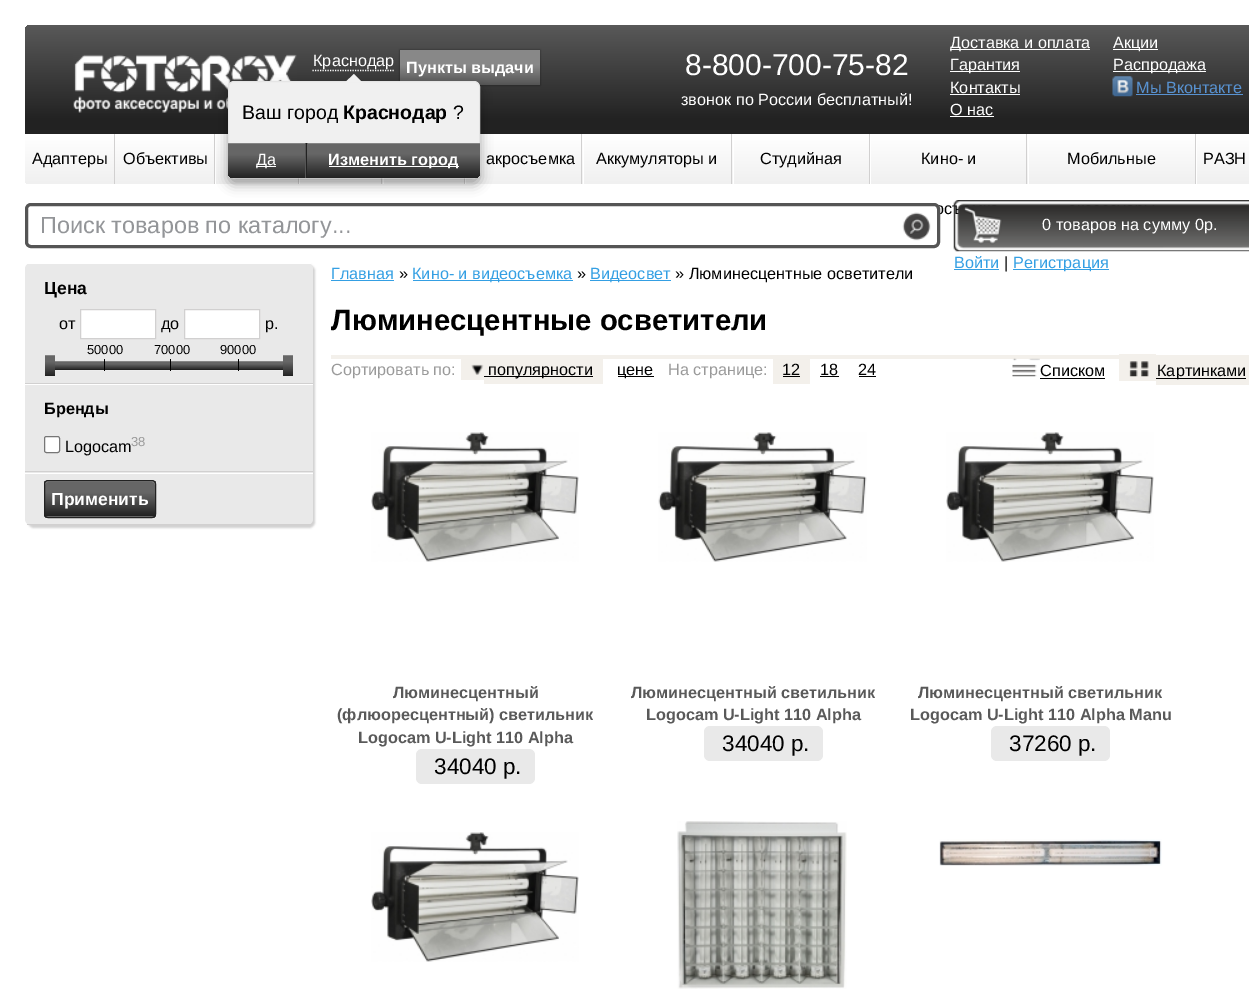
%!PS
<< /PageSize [1249 991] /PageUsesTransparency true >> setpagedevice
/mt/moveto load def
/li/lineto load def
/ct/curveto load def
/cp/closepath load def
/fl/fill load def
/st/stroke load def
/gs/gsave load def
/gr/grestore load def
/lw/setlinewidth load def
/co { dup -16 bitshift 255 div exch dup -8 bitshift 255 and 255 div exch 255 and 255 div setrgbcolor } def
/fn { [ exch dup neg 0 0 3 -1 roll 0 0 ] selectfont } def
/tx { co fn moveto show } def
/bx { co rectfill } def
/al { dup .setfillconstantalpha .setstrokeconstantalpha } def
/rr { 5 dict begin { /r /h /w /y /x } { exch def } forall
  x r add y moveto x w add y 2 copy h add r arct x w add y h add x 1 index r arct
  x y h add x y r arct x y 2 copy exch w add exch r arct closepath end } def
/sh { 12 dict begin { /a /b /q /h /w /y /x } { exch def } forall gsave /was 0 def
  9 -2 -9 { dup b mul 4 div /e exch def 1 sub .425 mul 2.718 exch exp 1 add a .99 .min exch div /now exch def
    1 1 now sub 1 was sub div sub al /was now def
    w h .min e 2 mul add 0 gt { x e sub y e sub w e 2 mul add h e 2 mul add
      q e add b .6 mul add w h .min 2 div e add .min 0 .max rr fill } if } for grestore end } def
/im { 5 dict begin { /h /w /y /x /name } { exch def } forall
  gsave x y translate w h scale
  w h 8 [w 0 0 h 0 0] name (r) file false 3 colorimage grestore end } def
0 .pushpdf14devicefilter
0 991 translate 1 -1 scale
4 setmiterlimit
0 0 1249 991 16#FFFFFF bx
gs 25 25 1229 159 5 rr clip newpath
<< /ShadingType 2 /ColorSpace /DeviceRGB /Coords [650 25 650 184] /Extend [true true] /Function << /FunctionType 3 /Domain [0 1] /Functions [<< /FunctionType 2 /Domain [0 1] /C0 [.349 .349 .349] /C1 [.133 .133 .133] /N 1 >> << /FunctionType 2 /Domain [0 1] /C0 [.133 .133 .133] /C1 [.133 .133 .133] /N 1 >>] /Bounds [.6] /Encode [0 1 0 1] >> >> shfill gr
(media/1.raw) 73 54 224 59 im
1.2 lw
[1.25 1.25] 0 setdash
312.5 70.5 mt 394 70.5 li st
16#000000 co
400 50 140 35 0 1 .5 sh
gs 400 50 mt 540 50 li 540 85 li 400 85 li cp clip newpath
<< /ShadingType 2 /ColorSpace /DeviceRGB /Coords [470 50 470 85] /Extend [true true] /Function << /FunctionType 3 /Domain [0 1] /Functions [<< /FunctionType 2 /Domain [0 1] /C0 [.533 .533 .533] /C1 [.533 .533 .533] /N 1 >> << /FunctionType 2 /Domain [0 1] /C0 [.533 .533 .533] /C1 [.333 .333 .333] /N 1 >>] /Bounds [.43] /Encode [0 1 0 1] >> >> shfill gr
gs 115 134 mt 214 134 li 214 184 li 115 184 li cp clip newpath
<< /ShadingType 2 /ColorSpace /DeviceRGB /Coords [164 134 164 184] /Extend [true true] /Function << /FunctionType 2 /Domain [0 1] /C0 [1 1 1] /C1 [.941 .941 .941] /N 1 >> >> shfill gr
215 134 1 50 16#FFFFFF bx
gs 216 134 mt 298 134 li 298 184 li 216 184 li cp clip newpath
<< /ShadingType 2 /ColorSpace /DeviceRGB /Coords [256 134 256 184] /Extend [true true] /Function << /FunctionType 2 /Domain [0 1] /C0 [1 1 1] /C1 [.941 .941 .941] /N 1 >> >> shfill gr
299 178 1 6 16#FFFFFF bx
214 134 1 50 16#D1D0D0 bx
gs 466 134 mt 581 134 li 581 184 li 466 184 li cp clip newpath
<< /ShadingType 2 /ColorSpace /DeviceRGB /Coords [523 134 523 184] /Extend [true true] /Function << /FunctionType 2 /Domain [0 1] /C0 [1 1 1] /C1 [.941 .941 .941] /N 1 >> >> shfill gr
464 178 1 6 16#D1D0D0 bx
gs 300 178 mt 381 178 li 381 184 li 300 184 li cp clip newpath
<< /ShadingType 2 /ColorSpace /DeviceRGB /Coords [339 134 339 184] /Extend [true true] /Function << /FunctionType 2 /Domain [0 1] /C0 [1 1 1] /C1 [.941 .941 .941] /N 1 >> >> shfill gr
gs 382 178 mt 464 178 li 464 184 li 382 184 li cp clip newpath
<< /ShadingType 2 /ColorSpace /DeviceRGB /Coords [423 134 423 184] /Extend [true true] /Function << /FunctionType 2 /Domain [0 1] /C0 [1 1 1] /C1 [.941 .941 .941] /N 1 >> >> shfill gr
383 178 1 6 16#FFFFFF bx
298 178 1 6 16#D1D0D0 bx
465 178 1 6 16#FFFFFF bx
381 178 1 6 16#D1D0D0 bx
16#000000 co
228 88 252 96 6 6 .35 sh
16#F0F0F0 co
228.5 81.5 251 96 5.5 rr gs fl gr
16#E5E5E5 co
1 lw
[] 0 setdash
st
16#F0F0F0 co
362.5 82.5 mt 345 82.5 li 354 74 li cp fl
0.14 al
16#FFFFFF co
228 174 mt 228 177 231 179 234 179 ct 306 179 li 306 178 li 234 178 li 231 178 229 176 228 174 ct cp fl
1 al
gs 228 143 mt 306 143 li 306 178 li 234 178 li 230.5 178 228 175.5 228 172 ct cp clip newpath
<< /ShadingType 2 /ColorSpace /DeviceRGB /Coords [266 143 266 178] /Extend [true true] /Function << /FunctionType 3 /Domain [0 1] /Functions [<< /FunctionType 2 /Domain [0 1] /C0 [.4 .4 .4] /C1 [.4 .4 .4] /N 1 >> << /FunctionType 2 /Domain [0 1] /C0 [.4 .4 .4] /C1 [.2 .2 .2] /N 1 >> << /FunctionType 2 /Domain [0 1] /C0 [.2 .2 .2] /C1 [.133 .133 .133] /N 1 >>] /Bounds [.33 .83] /Encode [0 1 0 1 0 1] >> >> shfill gr
228 143 77 1 16#868686 bx
305 143 1 35 16#555555 bx
256 166 20 1 16#FFFFFF bx
0.14 al
306 144 mt 306 179 li 474 179 li 477 179 480 176 480 173 ct 480 171 li 480 175 477 178 474 178 ct 306 178 li cp fl
1 al
gs 306 143 mt 480 143 li 480 172 li 480 175.5 477.5 178 474 178 ct 306 178 li cp clip newpath
<< /ShadingType 2 /ColorSpace /DeviceRGB /Coords [394 142 394 178] /Extend [true true] /Function << /FunctionType 3 /Domain [0 1] /Functions [<< /FunctionType 2 /Domain [0 1] /C0 [.4 .4 .4] /C1 [.4 .4 .4] /N 1 >> << /FunctionType 2 /Domain [0 1] /C0 [.4 .4 .4] /C1 [.2 .2 .2] /N 1 >> << /FunctionType 2 /Domain [0 1] /C0 [.2 .2 .2] /C1 [.133 .133 .133] /N 1 >>] /Bounds [.33 .83] /Encode [0 1 0 1 0 1] >> >> shfill gr
308 143 172 1 16#868686 bx
306 143 1 35 16#222222 bx
329 166 130 1 16#FFFFFF bx
950 49 140 1 16#FFFFFF bx
950 71 70 1 16#FFFFFF bx
950 94 70 1 16#FFFFFF bx
950 116 44 1 16#FFFFFF bx
1113 49 45 1 16#FFFFFF bx
1113 71 93 1 16#FFFFFF bx
(media/2.raw) 1112 76 21 21 im
1136 94 107 1 16#5892D1 bx
gs 25 134 mt 114 134 li 114 184 li 29 184 li 27 184 25 182 25 180 ct cp clip newpath
<< /ShadingType 2 /ColorSpace /DeviceRGB /Coords [69 134 69 184] /Extend [true true] /Function << /FunctionType 2 /Domain [0 1] /C0 [1 1 1] /C1 [.941 .941 .941] /N 1 >> >> shfill gr
114 134 1 50 16#D1D0D0 bx
gs 582 134 mt 731 134 li 731 184 li 582 184 li cp clip newpath
<< /ShadingType 2 /ColorSpace /DeviceRGB /Coords [656 134 656 184] /Extend [true true] /Function << /FunctionType 2 /Domain [0 1] /C0 [1 1 1] /C1 [.941 .941 .941] /N 1 >> >> shfill gr
583 134 1 50 16#FFFFFF bx
gs 732 134 mt 869 134 li 869 184 li 732 184 li cp clip newpath
<< /ShadingType 2 /ColorSpace /DeviceRGB /Coords [800 134 800 184] /Extend [true true] /Function << /FunctionType 2 /Domain [0 1] /C0 [1 1 1] /C1 [.941 .941 .941] /N 1 >> >> shfill gr
733 134 1 50 16#FFFFFF bx
581 134 1 50 16#D1D0D0 bx
870 134 1 50 16#FFFFFF bx
731 134 1 50 16#D1D0D0 bx
gs 871 134 mt 1026 134 li 1026 184 li 871 184 li cp clip newpath
<< /ShadingType 2 /ColorSpace /DeviceRGB /Coords [948 134 948 184] /Extend [true true] /Function << /FunctionType 2 /Domain [0 1] /C0 [1 1 1] /C1 [.941 .941 .941] /N 1 >> >> shfill gr
gs 1027 134 mt 1195 134 li 1195 184 li 1027 184 li cp clip newpath
<< /ShadingType 2 /ColorSpace /DeviceRGB /Coords [1111 134 1111 184] /Extend [true true] /Function << /FunctionType 2 /Domain [0 1] /C0 [1 1 1] /C1 [.941 .941 .941] /N 1 >> >> shfill gr
1028 134 1 50 16#FFFFFF bx
869 134 1 50 16#D1D0D0 bx
1196 134 1 50 16#FFFFFF bx
1026 134 1 50 16#D1D0D0 bx
gs 1197 134 mt 1249 134 li 1249 184 li 1197 184 li cp clip newpath
<< /ShadingType 2 /ColorSpace /DeviceRGB /Coords [1235 134 1235 184] /Extend [true true] /Function << /FunctionType 2 /Domain [0 1] /C0 [1 1 1] /C1 [.941 .941 .941] /N 1 >> >> shfill gr
1195 134 1 50 16#D1D0D0 bx
954 269 45 1 16#349FE3 bx
1013 269 96 1 16#349FE3 bx
16#D1D0D0 co
28 265 287 263 6 1 1 sh
16#E9E9E9 co
25 263 288 262 6 rr fl
gs
25 263 288 262 6 rr clip newpath
25 263 288 1 16#FFFFFF bx
gr
25 383 288 1 16#D1D0D0 bx
16#FFFFFF co
80.5 309.5 mt 155.5 309.5 li 155.5 338.5 li 80.5 338.5 li cp gs fl gr
16#D1D0D0 co
st
16#FFFFFF co
184.5 309.5 mt 259.5 309.5 li 259.5 338.5 li 184.5 338.5 li cp gs fl gr
16#D1D0D0 co
st
16#ECECEC co
50 370 mt 50 371 li 288 371 li 288 363 li 288 370 li cp fl
gs 55 362 mt 283 362 li 283 370 li 55 370 li cp clip newpath
<< /ShadingType 2 /ColorSpace /DeviceRGB /Coords [169 361 169 370] /Extend [true true] /Function << /FunctionType 3 /Domain [0 1] /Functions [<< /FunctionType 2 /Domain [0 1] /C0 [.4 .4 .4] /C1 [.4 .4 .4] /N 1 >> << /FunctionType 2 /Domain [0 1] /C0 [.4 .4 .4] /C1 [.2 .2 .2] /N 1 >> << /FunctionType 2 /Domain [0 1] /C0 [.2 .2 .2] /C1 [.133 .133 .133] /N 1 >>] /Bounds [.33 .83] /Encode [0 1 0 1 0 1] >> >> shfill gr
50 361 238 1 16#868686 bx
104 359 1 12 16#000000 bx
170 359 1 12 16#000000 bx
238 359 1 12 16#000000 bx
gs 45 356 mt 55 356 li 55 376 li 45 376 li cp clip newpath
<< /ShadingType 2 /ColorSpace /DeviceRGB /Coords [50 355 50 376] /Extend [true true] /Function << /FunctionType 3 /Domain [0 1] /Functions [<< /FunctionType 2 /Domain [0 1] /C0 [.4 .4 .4] /C1 [.4 .4 .4] /N 1 >> << /FunctionType 2 /Domain [0 1] /C0 [.4 .4 .4] /C1 [.2 .2 .2] /N 1 >> << /FunctionType 2 /Domain [0 1] /C0 [.2 .2 .2] /C1 [.133 .133 .133] /N 1 >>] /Bounds [.33 .83] /Encode [0 1 0 1 0 1] >> >> shfill gr
45 355 10 1 16#868686 bx
gs 283 356 mt 293 356 li 293 376 li 283 376 li cp clip newpath
<< /ShadingType 2 /ColorSpace /DeviceRGB /Coords [288 355 288 376] /Extend [true true] /Function << /FunctionType 3 /Domain [0 1] /Functions [<< /FunctionType 2 /Domain [0 1] /C0 [.4 .4 .4] /C1 [.4 .4 .4] /N 1 >> << /FunctionType 2 /Domain [0 1] /C0 [.4 .4 .4] /C1 [.2 .2 .2] /N 1 >> << /FunctionType 2 /Domain [0 1] /C0 [.2 .2 .2] /C1 [.133 .133 .133] /N 1 >>] /Bounds [.33 .83] /Encode [0 1 0 1 0 1] >> >> shfill gr
283 355 10 1 16#868686 bx
25 384 288 1 16#FFFFFF bx
25 471 288 1 16#D1D0D0 bx
16#FFFFFF co
44.5 436.5 15 16 2 rr gs fl gr
16#767676 co
st
25 473 288 1 16#FFFFFF bx
gs
25 263 288 262 6 rr clip newpath
25 524 288 1 16#D1D0D0 bx
gr
16#ECECEC co
44 515 mt 44 517 46 519 48 519 ct 152 519 li 154 519 156 517 156 515 ct 155 517 154 518 152 518 ct 48 518 li 46 518 45 517 44 515 ct cp fl
gs
44 480 112 38 4 rr clip newpath
gs 44 481 mt 156 481 li 156 516 li 44 516 li cp clip newpath
<< /ShadingType 2 /ColorSpace /DeviceRGB /Coords [100 481 100 516] /Extend [true true] /Function << /FunctionType 3 /Domain [0 1] /Functions [<< /FunctionType 2 /Domain [0 1] /C0 [.4 .4 .4] /C1 [.4 .4 .4] /N 1 >> << /FunctionType 2 /Domain [0 1] /C0 [.4 .4 .4] /C1 [.2 .2 .2] /N 1 >> << /FunctionType 2 /Domain [0 1] /C0 [.2 .2 .2] /C1 [.133 .133 .133] /N 1 >>] /Bounds [.33 .83] /Encode [0 1 0 1 0 1] >> >> shfill gr
gs 44 516 mt 156 516 li 156 518 li 44 518 li cp clip newpath
<< /ShadingType 2 /ColorSpace /DeviceRGB /Coords [100 516 100 551] /Extend [true true] /Function << /FunctionType 3 /Domain [0 1] /Functions [<< /FunctionType 2 /Domain [0 1] /C0 [.4 .4 .4] /C1 [.4 .4 .4] /N 1 >> << /FunctionType 2 /Domain [0 1] /C0 [.4 .4 .4] /C1 [.2 .2 .2] /N 1 >> << /FunctionType 2 /Domain [0 1] /C0 [.2 .2 .2] /C1 [.133 .133 .133] /N 1 >>] /Bounds [.33 .83] /Encode [0 1 0 1 0 1] >> >> shfill gr
gr
16#868686 co
48 482 mt 152 482 li 154 482 155 484 155 485 ct 155 484 li 155 482 154 481 152 481 ct 48 481 li 46 481 45 482 45 484 ct 45 485 li 45 484 46 482 48 482 ct cp fl
16#222222 co
44.5 480.5 111 37 3.5 rr st
331 280 63 1 16#349FE3 bx
413 280 160 1 16#349FE3 bx
590 280 81 1 16#349FE3 bx
331 355 918 4 16#F3F0EB bx
461 359 23 21 16#F3F0EB bx
484 359 119 25 16#F3F0EB bx
(media/5.raw) 471 364 13 11 im
484 376 109 1 16#000000 bx
618 376 36 1 16#000000 bx
773 359 37 25 16#F3F0EB bx
783 376 17 1 16#000000 bx
820 376 19 1 16#000000 bx
859 376 17 1 16#000000 bx
(media/6.raw) 1012 358 28 19 im
1040 378 65 1 16#000000 bx
1119 354 37 27 16#F3F0EB bx
1156 359 93 26 16#F3F0EB bx
(media/7.raw) 1129 361 20 16 im
1156 378 90 1 16#000000 bx
(media/8.raw) 371 432 208 130 im
16#E9E9E9 co
416 749 119 35 6 rr fl
(media/9.raw) 658 432 209 130 im
704 726 119 35 6 rr fl
(media/8.raw) 946 432 208 130 im
991 726 119 35 6 rr fl
(media/8.raw) 371 832 208 130 im
(media/10.raw) 677 821 170 168 im
(media/11.raw) 939 839 223 27 im
(Краснодар) 313 66 /LiberationSans-Regular 16.25 16#FFFFFF tx
(Ваш город) 242 119 /LiberationSans-Regular 19.5 16#000000 tx
(Краснодар) 343 119 /LiberationSans-Bold 19.5 16#000000 tx
(?) 453 119 /LiberationSans-Regular 19.5 16#000000 tx
(Да) 256 165 /LiberationSans-Regular 16.25 16#FFFFFF tx
(Изменить город) 328 165 /LiberationSans-Bold 16.25 16#FFFFFF tx
(Пункты выдачи) 406 73 /LiberationSans-Bold 16.25 16#FFFFFF tx
(8-800-700-75-82) 685 75 /LiberationSans-Regular 30 16#FFFFFF tx
(звонок по России бесплатный!) 681 105 /LiberationSans-Regular 16.25 16#FFFFFF tx
(Доставка и оплата) 950 48 /LiberationSans-Regular 16.25 16#FFFFFF tx
(Гарантия) 950 70 /LiberationSans-Regular 16.25 16#FFFFFF tx
(Контакты) 950 93 /LiberationSans-Regular 16.25 16#FFFFFF tx
(О нас) 950 115 /LiberationSans-Regular 16.25 16#FFFFFF tx
(Акции) 1113 48 /LiberationSans-Regular 16.25 16#FFFFFF tx
(Распродажа) 1113 70 /LiberationSans-Regular 16.25 16#FFFFFF tx
(Мы Вконтакте) 1136 93 /LiberationSans-Regular 16.25 16#5892D1 tx
(Адаптеры) 32 164 /LiberationSans-Regular 16.25 16#000000 tx
(Объективы) 123 164 /LiberationSans-Regular 16.25 16#000000 tx
(акросъемка) 486 164 /LiberationSans-Regular 16.25 16#000000 tx
(Аккумуляторы и) 596 164 /LiberationSans-Regular 16.25 16#000000 tx
(Студийная) 760 164 /LiberationSans-Regular 16.25 16#000000 tx
(Кино- и) 921 164 /LiberationSans-Regular 16.25 16#000000 tx
(осъ) 935 214 /LiberationSans-Regular 16.25 16#000000 tx
(Мобильные) 1067 164 /LiberationSans-Regular 16.25 16#000000 tx
(РАЗН) 1203 164 /LiberationSans-Regular 16.25 16#000000 tx
16#FFFFFF co
26.5 204.5 912 42 4.5 rr gs fl gr
16#555555 co
3 lw
st
(Поиск товаров по каталогу...) 40 233 /LiberationSans-Regular 23.4 16#939598 tx
(media/3.raw) 902 212 29 29 im
(media/4.raw) 953 200 296 52 im
(0 товаров на сумму 0р.) 1042 230 /LiberationSans-Regular 16.25 16#FFFFFF tx
(Войти) 954 268 /LiberationSans-Regular 16.25 16#349FE3 tx
(|) 1004 268 /LiberationSans-Regular 16.25 16#000000 tx
(Регистрация) 1013 268 /LiberationSans-Regular 16.25 16#349FE3 tx
(Цена) 44 294 /LiberationSans-Bold 17.5 16#000000 tx
(от) 59 329 /LiberationSans-Regular 16.25 16#000000 tx
(до) 161 329 /LiberationSans-Regular 16.25 16#000000 tx
(р.) 265 329 /LiberationSans-Regular 16.25 16#000000 tx
(50000) 87 354 /LiberationSans-Regular 13 16#000000 tx
(70000) 154 354 /LiberationSans-Regular 13 16#000000 tx
(90000) 220 354 /LiberationSans-Regular 13 16#000000 tx
(Бренды) 44 414 /LiberationSans-Bold 16.25 16#000000 tx
(Logocam) 65 452 /LiberationSans-Regular 16.25 16#000000 tx
(38) 131 446 /LiberationSans-Regular 13 16#9A9A9A tx
(Применить) 51 505 /LiberationSans-Bold 17.5 16#FFFFFF tx
(Главная) 331 279 /LiberationSans-Regular 16.25 16#349FE3 tx
(») 399 279 /LiberationSans-Regular 16.25 16#000000 tx
(Кино- и видеосъемка) 412 279 /LiberationSans-Regular 16.25 16#349FE3 tx
(») 577 279 /LiberationSans-Regular 16.25 16#000000 tx
(Видеосвет) 590 279 /LiberationSans-Regular 16.25 16#349FE3 tx
(» Люминесцентные осветители) 675 279 /LiberationSans-Regular 16.25 16#000000 tx
(Люминесцентные осветители) 331 330 /LiberationSans-Bold 29.25 16#000000 tx
(Сортировать по:) 331 375 /LiberationSans-Regular 16.25 16#9A9A9A tx
(популярности) 488 375 /LiberationSans-Regular 16.25 16#000000 tx
(цене) 617 375 /LiberationSans-Regular 16.25 16#000000 tx
(На странице:) 668 375 /LiberationSans-Regular 16.25 16#9A9A9A tx
(12) 782 375 /LiberationSans-Regular 16.25 16#000000 tx
(18) 820 375 /LiberationSans-Regular 16.25 16#000000 tx
(24) 858 375 /LiberationSans-Regular 16.25 16#000000 tx
(Списком) 1040 376 /LiberationSans-Regular 16.25 16#000000 tx
(Картинками) 1157 376 /LiberationSans-Regular 16.25 16#000000 tx
(Люминесцентный) 393 698 /LiberationSans-Bold 16.25 16#595959 tx
(\(флюоресцентный\) светильник) 337 720 /LiberationSans-Bold 16.25 16#595959 tx
(Logocam U-Light 110 Alpha) 358 743 /LiberationSans-Bold 16.25 16#595959 tx
(34040 р.) 434 774 /LiberationSans-Regular 22.5 16#000000 tx
(Люминесцентный светильник) 631 698 /LiberationSans-Bold 16.25 16#595959 tx
(Logocam U-Light 110 Alpha) 646 720 /LiberationSans-Bold 16.25 16#595959 tx
(34040 р.) 722 751 /LiberationSans-Regular 22.5 16#000000 tx
(Люминесцентный светильник) 918 698 /LiberationSans-Bold 16.25 16#595959 tx
(Logocam U-Light 110 Alpha Manu) 910 720 /LiberationSans-Bold 16.25 16#595959 tx
(37260 р.) 1009 751 /LiberationSans-Regular 22.5 16#000000 tx
.poppdf14devicefilter showpage
